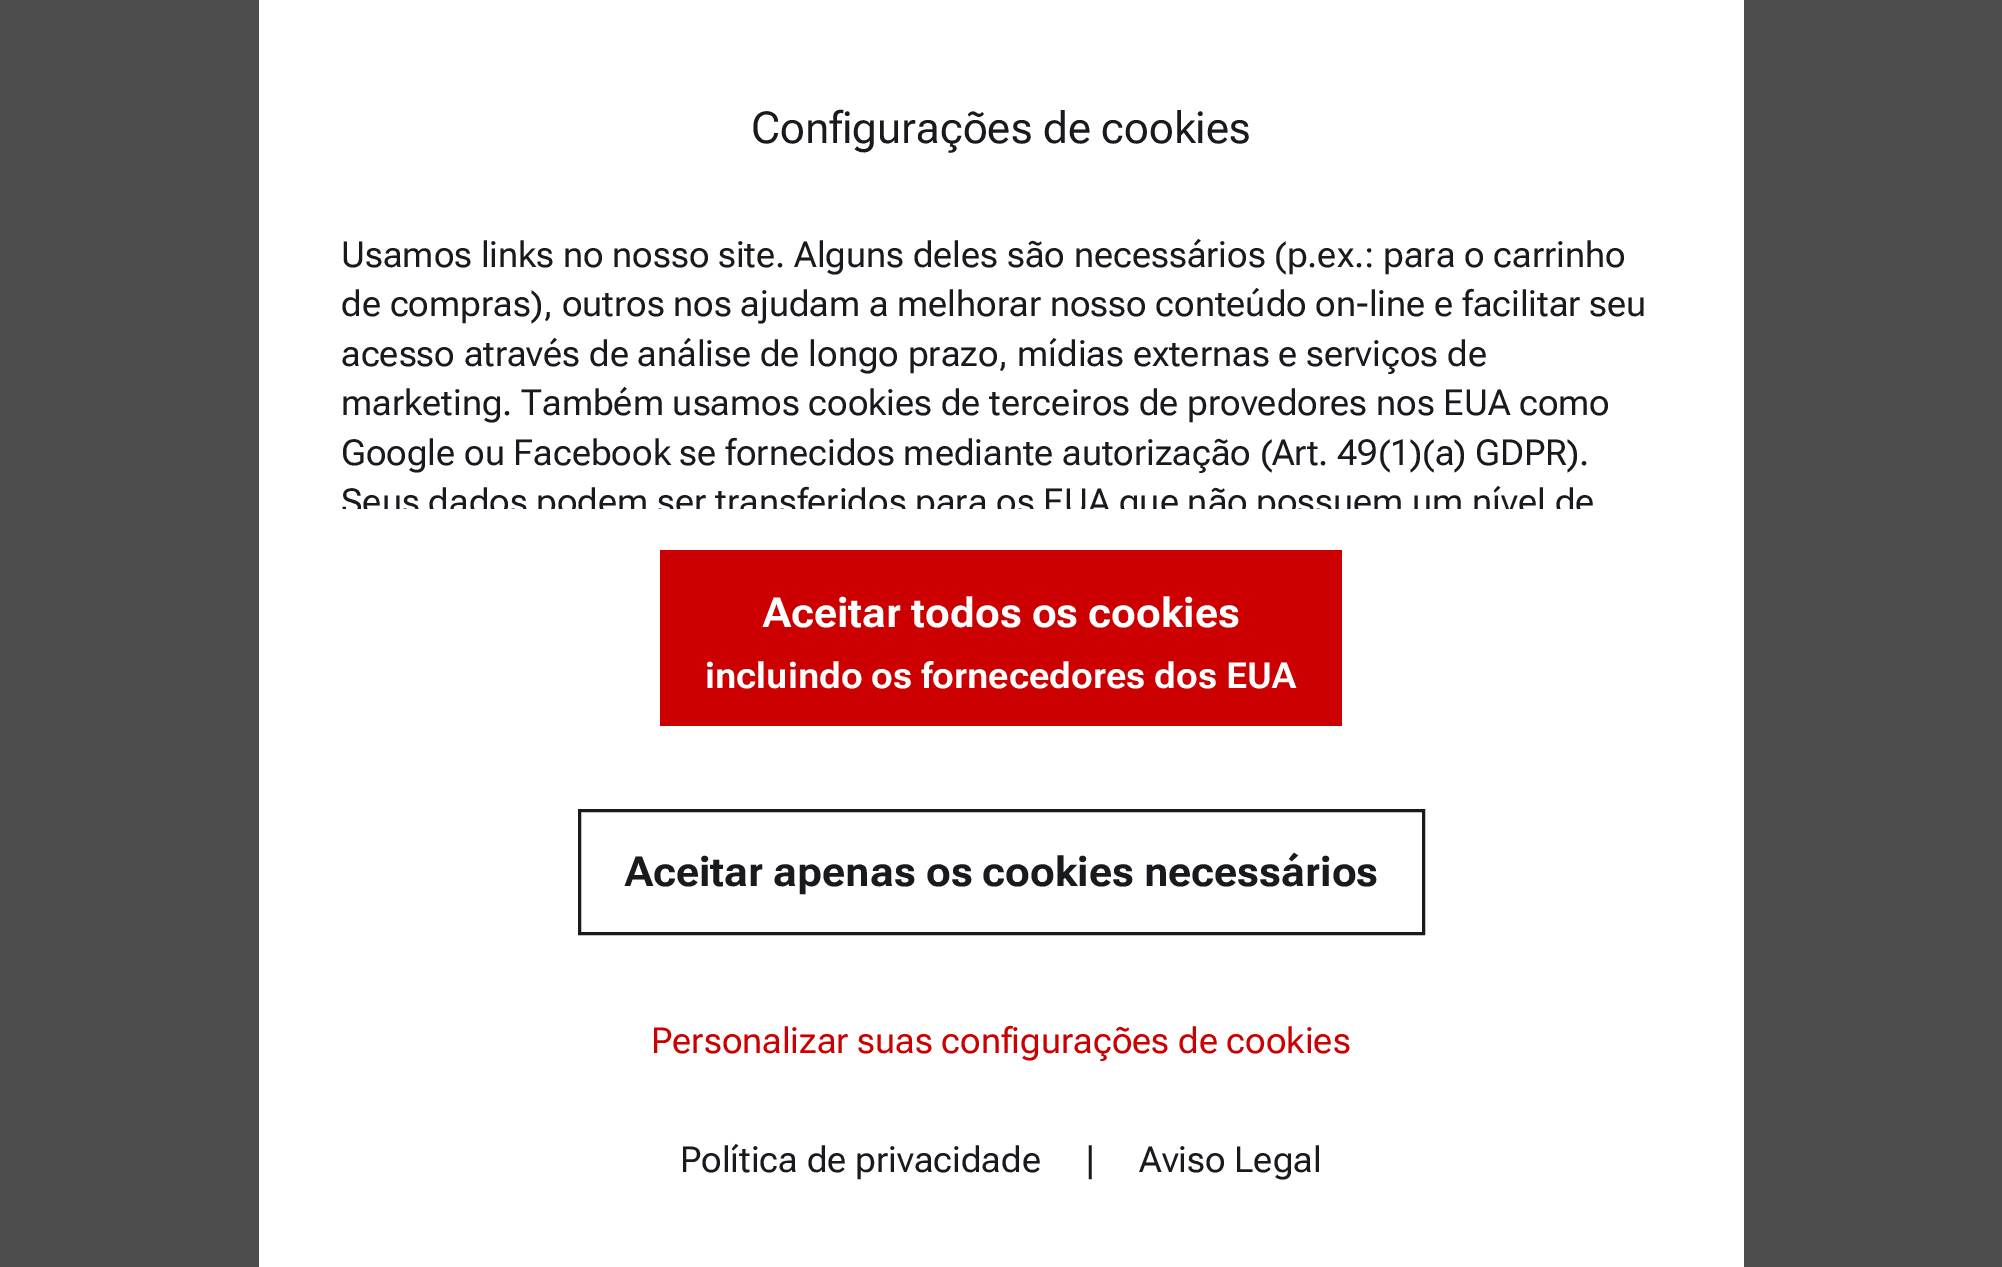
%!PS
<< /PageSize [2002 1267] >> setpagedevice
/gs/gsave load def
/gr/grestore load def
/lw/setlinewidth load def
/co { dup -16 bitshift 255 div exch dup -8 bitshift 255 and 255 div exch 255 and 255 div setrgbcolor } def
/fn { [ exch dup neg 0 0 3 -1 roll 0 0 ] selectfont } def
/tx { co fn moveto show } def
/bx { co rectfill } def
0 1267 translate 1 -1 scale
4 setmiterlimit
0 0 2002 1267 16#4D4D4D bx
259 0 1485 1267 16#FFFFFF bx
660 550 682 176 16#CC0000 bx
16#181A1E co
3 lw
579.5 810.5 844 123 rectstroke
(Configurações de cookies) 751 143 /RobotoFlex-Regular 44 16#181A1E tx
(Usamos links no nosso site. Alguns deles são necessários \(p.ex.: para o carrinho) 341 267 /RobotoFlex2-Regular 35.75 16#181A1E tx
(de compras\), outros nos ajudam a melhorar nosso conteúdo on-line e facilitar seu) 341 316 /RobotoFlex2-Regular 35.75 16#181A1E tx
(acesso através de análise de longo prazo, mídias externas e serviços de) 341 366 /RobotoFlex2-Regular 35.75 16#181A1E tx
(marketing. Também usamos cookies de terceiros de provedores nos EUA como) 341 415 /RobotoFlex2-Regular 35.75 16#181A1E tx
(Google ou Facebook se fornecidos mediante autorização \(Art. 49\(1\)\(a\) GDPR\).) 341 465 /RobotoFlex2-Regular 35.75 16#181A1E tx
gs
341 231 1320 278 rectclip
(Seus dados podem ser transferidos para os EUA que não possuem um nível de) 341 514 /RobotoFlex2-Regular 35.75 16#181A1E tx
gr
(Aceitar todos os cookies) 763 627 /RobotoFlex-Bold 41.25 16#FFFFFF tx
(incluindo os fornecedores dos EUA) 705 688 /RobotoFlex2-Bold 35.75 16#FFFFFF tx
(Aceitar apenas os cookies necessários) 625 886 /RobotoFlex-Bold 41.25 16#181A1E tx
(Personalizar suas configurações de cookies) 651 1053 /RobotoFlex2-Regular 35.75 16#CC0000 tx
(Política de privacidade) 680 1172 /RobotoFlex2-Regular 35.75 16#181A1E tx
(|) 1085 1172 /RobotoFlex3-Regular 35.75 16#181A1E tx
(Aviso Legal) 1139 1172 /RobotoFlex2-Regular 35.75 16#181A1E tx
showpage
